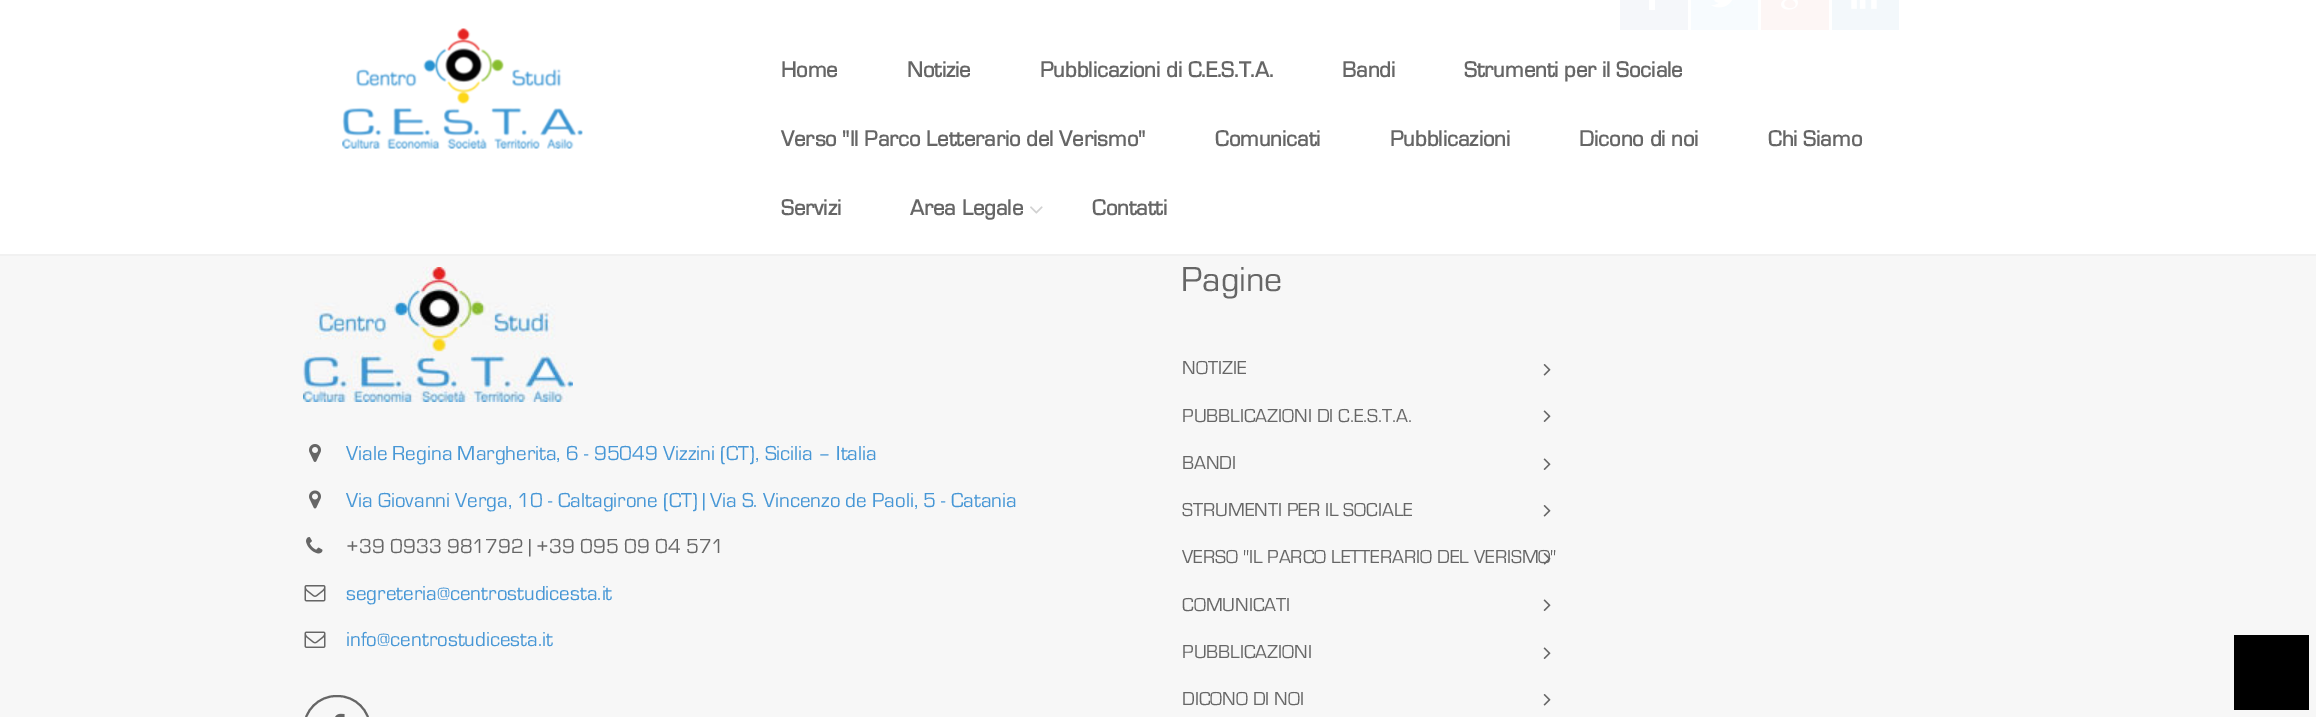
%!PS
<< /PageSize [2316 717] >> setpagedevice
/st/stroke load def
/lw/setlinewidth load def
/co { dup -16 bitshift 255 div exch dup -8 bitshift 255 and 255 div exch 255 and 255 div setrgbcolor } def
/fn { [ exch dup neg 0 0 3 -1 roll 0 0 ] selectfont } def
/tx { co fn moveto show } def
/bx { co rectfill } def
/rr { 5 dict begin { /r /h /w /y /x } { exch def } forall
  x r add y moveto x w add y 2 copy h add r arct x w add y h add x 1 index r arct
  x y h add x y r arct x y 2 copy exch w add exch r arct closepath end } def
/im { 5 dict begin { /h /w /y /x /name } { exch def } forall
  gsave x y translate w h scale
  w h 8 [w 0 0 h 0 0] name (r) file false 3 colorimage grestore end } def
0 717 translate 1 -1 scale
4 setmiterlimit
0 0 2316 717 16#FFFFFF bx
1620 0 68 30 16#F5F7FA bx
1649 0 6 10 16#FFFFFF bx
1691 0 67 30 16#F7FBFE bx
(media/1.raw) 1711 0 22 8 im
1761 0 68 30 16#FDF6F5 bx
(media/2.raw) 1781 0 17 10 im
1832 0 67 30 16#F3F8FB bx
(media/3.raw) 1851 0 26 9 im
0 254 2316 2 16#F1F1F1 bx
(media/4.raw) 342 28 241 121 im
(media/5.raw) 1030 206 13 8 im
0 256 2316 461 16#F7F7F7 bx
(media/6.raw) 303 267 270 135 im
(media/7.raw) 309 444 12 18 im
(media/8.raw) 309 490 12 19 im
(media/9.raw) 306 537 17 17 im
(media/10.raw) 304 585 22 17 im
(media/11.raw) 304 631 22 17 im
16#666666 co
2 lw
304 696 66 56 32.5 rr st
(media/12.raw) 335 713 10 4 im
(media/13.raw) 1543 364 8 12 im
(media/14.raw) 1543 410 8 12 im
(media/14.raw) 1543 458 8 12 im
(media/13.raw) 1543 505 8 12 im
(media/14.raw) 1543 599 8 12 im
(media/14.raw) 1543 647 8 12 im
(media/13.raw) 1543 694 8 12 im
2234 635 75 75 16#000000 bx
(Home) 781 77 /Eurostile-Bold 22.75 16#666666 tx
(Notizie) 907 77 /Eurostile-Bold 22.75 16#666666 tx
(Pubblicazioni di C.E.S.T.A.) 1040 77 /Eurostile-Bold 22.75 16#666666 tx
(Bandi) 1342 77 /Eurostile-Bold 22.75 16#666666 tx
(Strumenti per il Sociale) 1464 77 /Eurostile-Bold 22.75 16#666666 tx
(Verso "Il Parco Letterario del Verismo") 781 146 /Eurostile-Bold 22.75 16#666666 tx
(Comunicati) 1215 146 /Eurostile-Bold 22.75 16#666666 tx
(Pubblicazioni) 1390 146 /Eurostile-Bold 22.75 16#666666 tx
(Dicono di noi) 1579 146 /Eurostile-Bold 22.75 16#666666 tx
(Chi Siamo) 1768 146 /Eurostile-Bold 22.75 16#666666 tx
(Servizi) 781 215 /Eurostile-Bold 22.75 16#666666 tx
(Area Legale) 910 215 /Eurostile-Bold 22.75 16#666666 tx
(Contatti) 1092 215 /Eurostile-Bold 22.75 16#666666 tx
(Viale Regina Margherita, 6 - 95049 Vizzini \(CT\), Sicilia – Italia) 346 460 /Eurostile-Regular 21 16#4797D6 tx
(Via Giovanni Verga, 10 - Caltagirone \(CT\) | Via S. Vincenzo de Paoli, 5 - Catania) 346 507 /Eurostile-Regular 21 16#4797D6 tx
(+39 0933 981792 | +39 095 09 04 571) 346 553 /Eurostile-Regular 21 16#666666 tx
(segreteria@centrostudicesta.it) 346 600 /Eurostile-Regular 21 16#4797D6 tx
(info@centrostudicesta.it) 346 646 /Eurostile-Regular 21 16#4797D6 tx
(Pagine) 1181 291 /Eurostile-Regular 36 16#666666 tx
(NOTIZIE) 1182 374 /Eurostile-Regular 19.5 16#666666 tx
(PUBBLICAZIONI DI C.E.S.T.A.) 1182 422 /Eurostile-Regular 19.5 16#666666 tx
(BANDI) 1182 469 /Eurostile-Regular 19.5 16#666666 tx
(STRUMENTI PER IL SOCIALE) 1182 516 /Eurostile-Regular 19.5 16#666666 tx
(VERSO "IL PARCO LETTERARIO DEL VERISMO") 1182 563 /Eurostile-Regular 19.5 16#666666 tx
(media/15.raw) 1543 553 8 12 im
(COMUNICATI) 1182 611 /Eurostile-Regular 19.5 16#666666 tx
(PUBBLICAZIONI) 1182 658 /Eurostile-Regular 19.5 16#666666 tx
(DICONO DI NOI) 1182 705 /Eurostile-Regular 19.5 16#666666 tx
showpage
